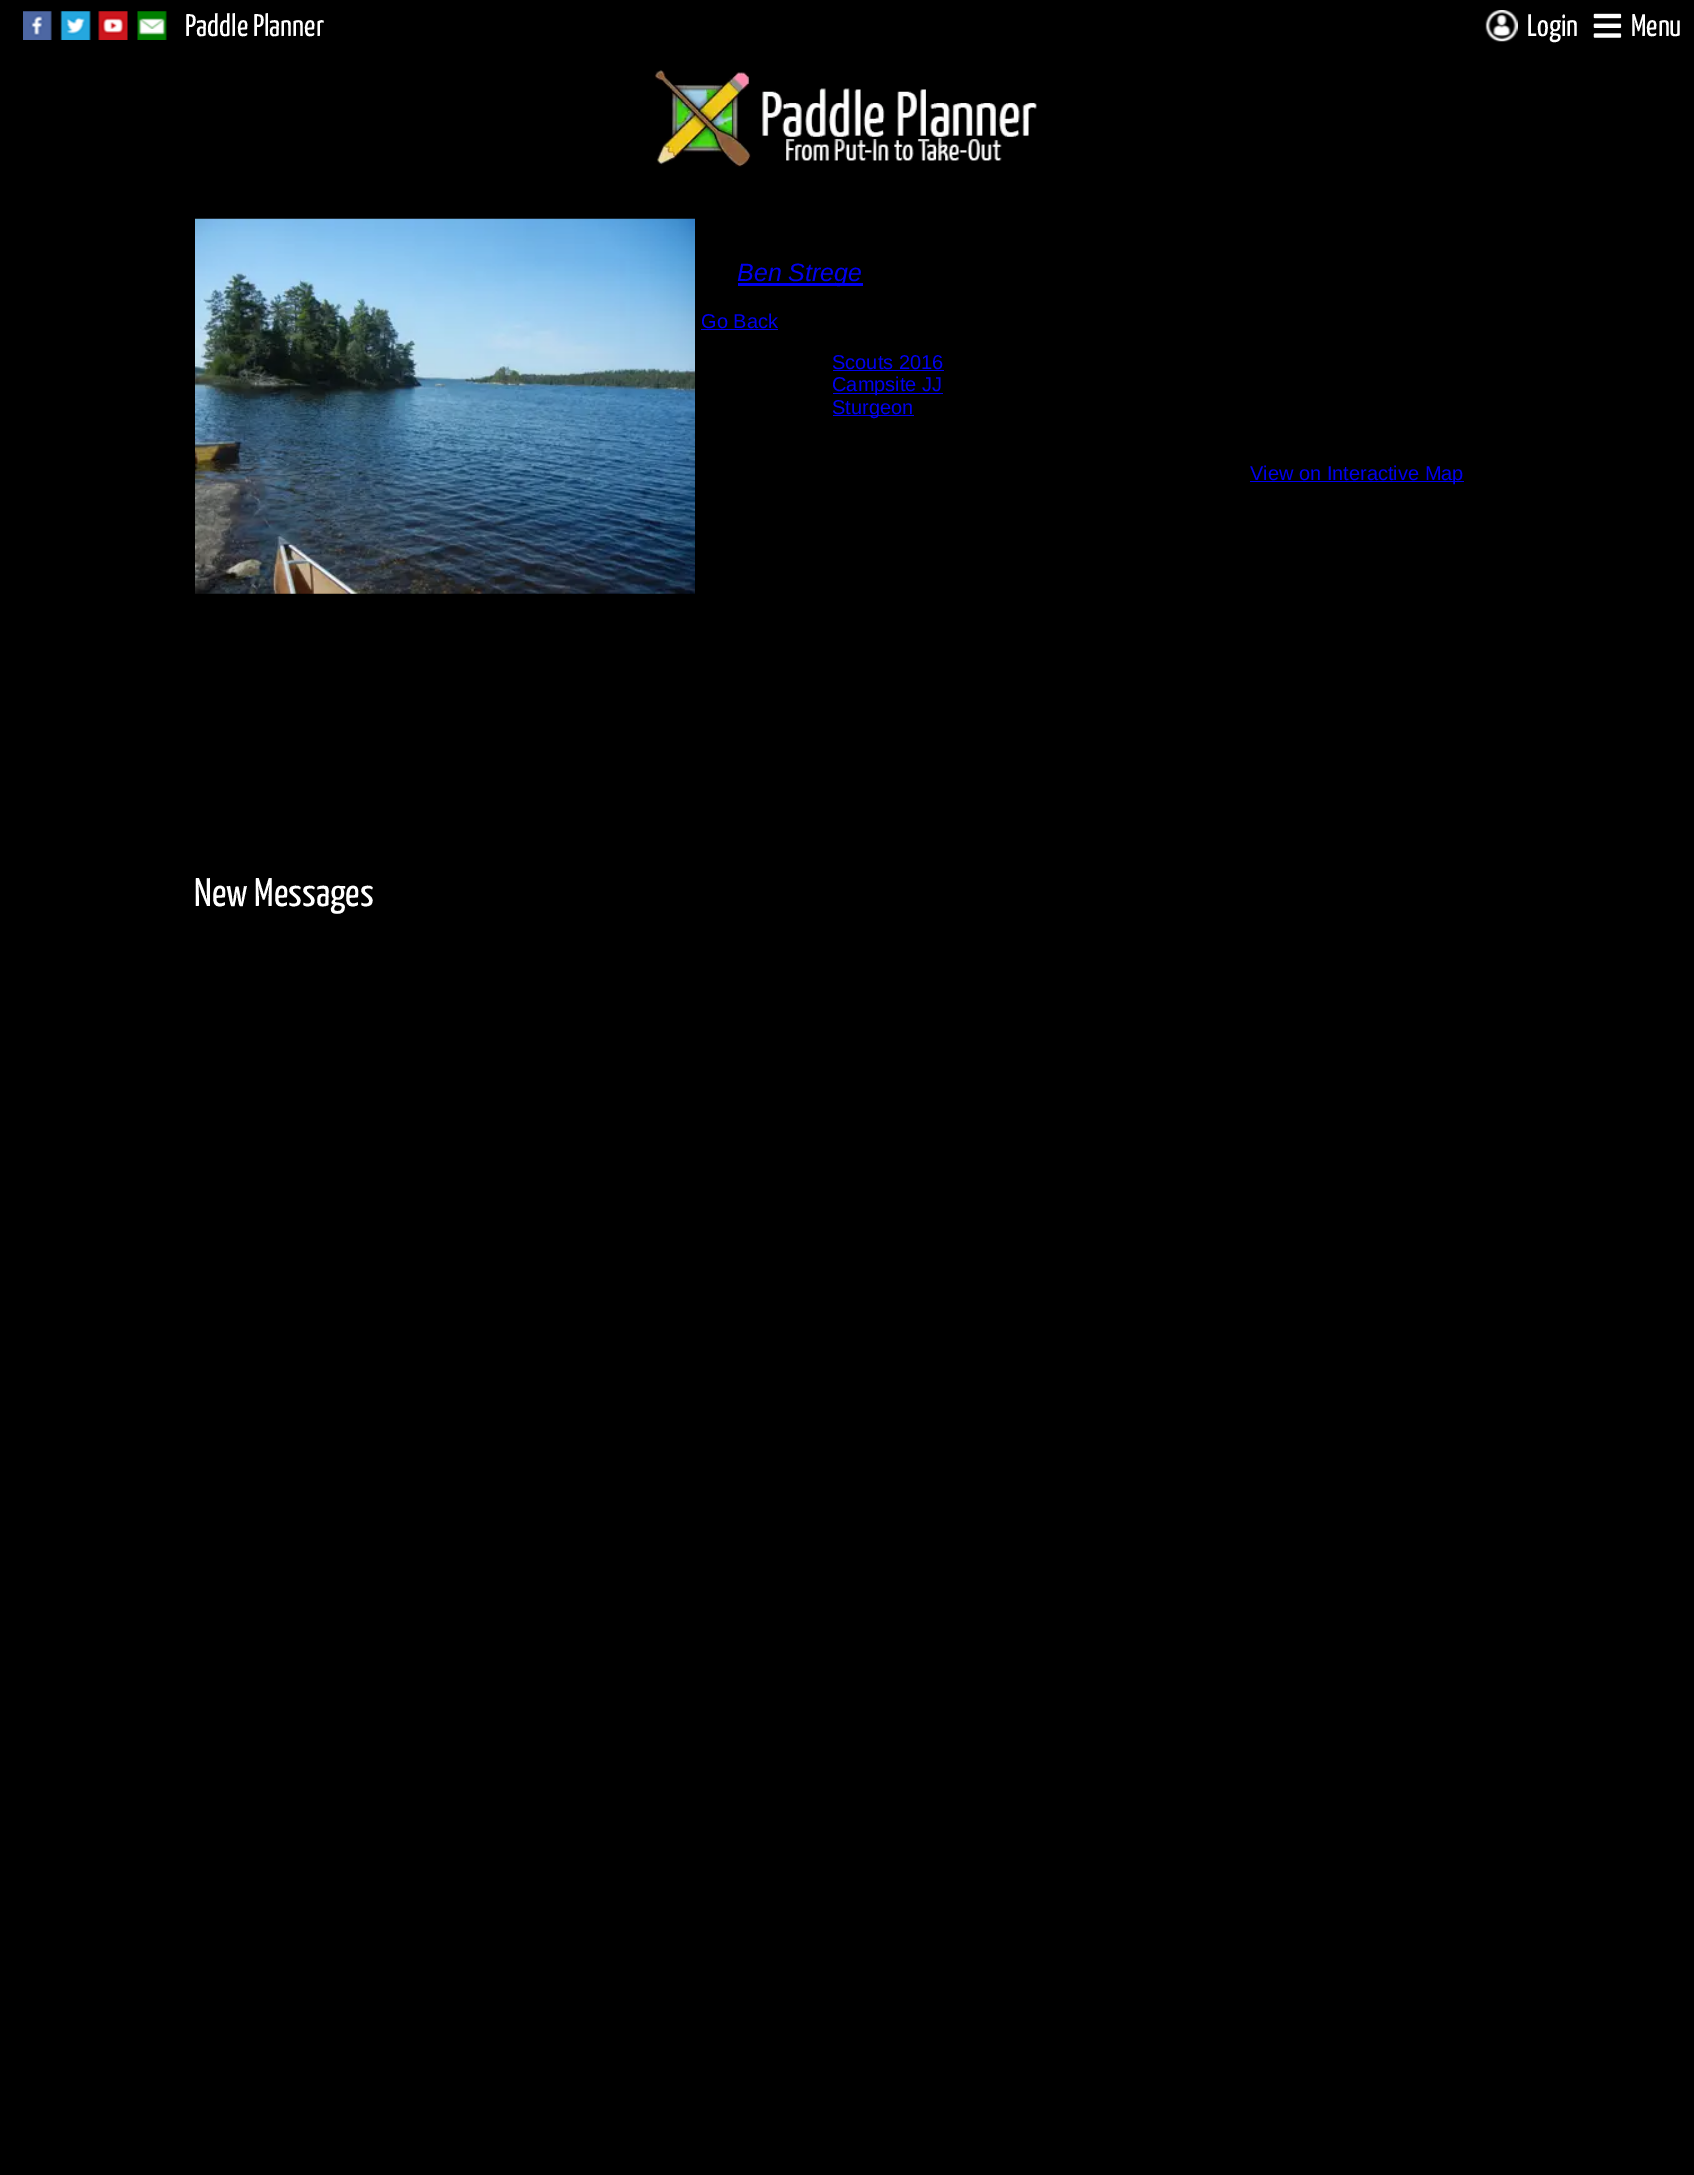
%!PS
<< /PageSize [1694 2175] >> setpagedevice
/co { dup -16 bitshift 255 div exch dup -8 bitshift 255 and 255 div exch 255 and 255 div setrgbcolor } def
/fn { [ exch dup neg 0 0 3 -1 roll 0 0 ] selectfont } def
/tx { co fn moveto show } def
/bx { co rectfill } def
/im { 5 dict begin { /h /w /y /x /name } { exch def } forall
  gsave x y translate w h scale
  w h 8 [w 0 0 h 0 0] name (r) file false 3 colorimage grestore end } def
0 2175 translate 1 -1 scale
4 setmiterlimit
0 0 1694 2175 16#000000 bx
(media/1.raw) 23 11 29 29 im
(media/2.raw) 60 11 31 29 im
(media/3.raw) 98 11 30 29 im
(media/4.raw) 137 11 30 29 im
(media/5.raw) 1485 10 33 32 im
(media/6.raw) 1593 13 29 25 im
(media/7.raw) 654 70 383 97 im
(media/8.raw) 195 218 500 376 im
738 283 125 3 16#0000EE bx
701 329 77 1 16#0000EE bx
833 370 111 1 16#0000EE bx
833 393 110 1 16#0000EE bx
833 415 81 1 16#0000EE bx
1250 481 214 1 16#0000EE bx
(Paddle Planner) 185 36 /YanoneKaffeesatz-Regular 31.25 16#FFFFFF tx
(Login) 1527 36 /YanoneKaffeesatz-Regular 31.25 16#FFFFFF tx
(Menu) 1631 36 /YanoneKaffeesatz-Regular 31.25 16#FFFFFF tx
(Ben Strege) 737 281 /LiberationSans-Italic 25 16#0000EE tx
(Go Back) 701 328 /LiberationSans-Regular 20 16#0000EE tx
(Scouts 2016) 832 369 /LiberationSans-Regular 20 16#0000EE tx
(Campsite JJ) 832 391 /LiberationSans-Regular 20 16#0000EE tx
(Sturgeon) 832 414 /LiberationSans-Regular 20 16#0000EE tx
(View on Interactive Map) 1250 480 /LiberationSans-Regular 20 16#0000EE tx
(New Messages) 194 906 /YanoneKaffeesatz-Regular 40 16#FFFFFF tx
showpage
